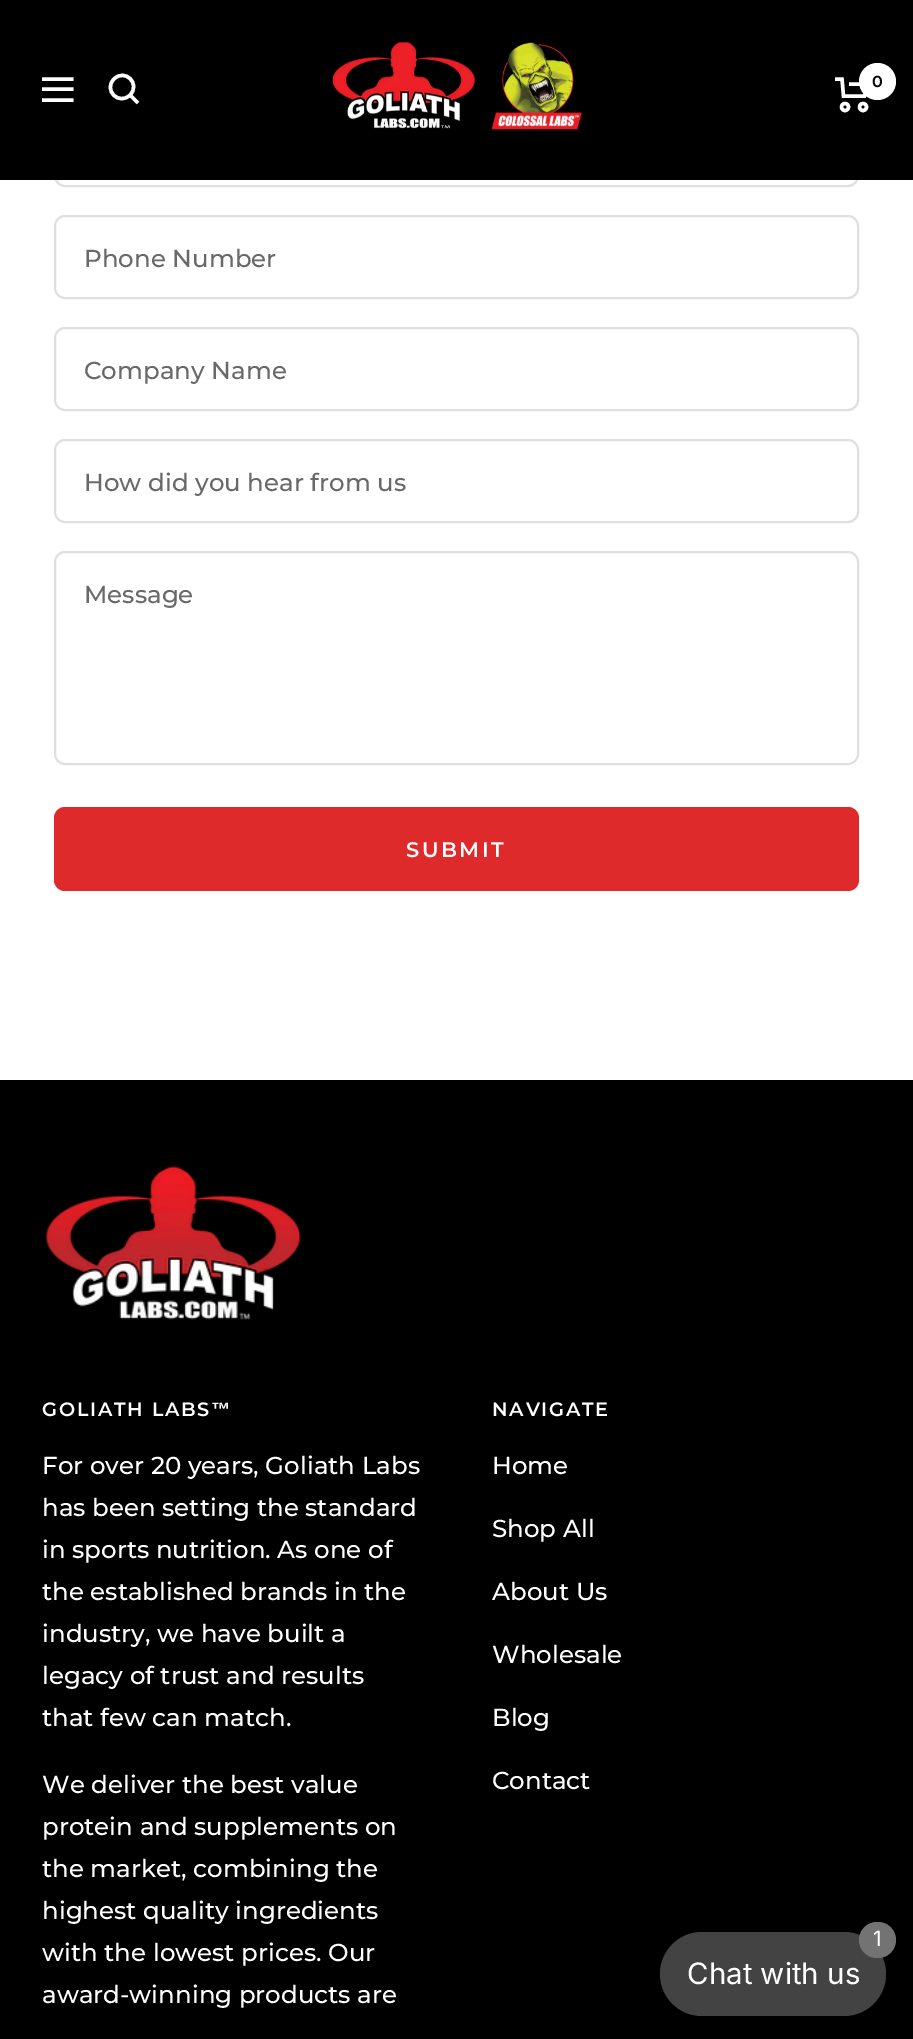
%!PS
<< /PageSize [913 2039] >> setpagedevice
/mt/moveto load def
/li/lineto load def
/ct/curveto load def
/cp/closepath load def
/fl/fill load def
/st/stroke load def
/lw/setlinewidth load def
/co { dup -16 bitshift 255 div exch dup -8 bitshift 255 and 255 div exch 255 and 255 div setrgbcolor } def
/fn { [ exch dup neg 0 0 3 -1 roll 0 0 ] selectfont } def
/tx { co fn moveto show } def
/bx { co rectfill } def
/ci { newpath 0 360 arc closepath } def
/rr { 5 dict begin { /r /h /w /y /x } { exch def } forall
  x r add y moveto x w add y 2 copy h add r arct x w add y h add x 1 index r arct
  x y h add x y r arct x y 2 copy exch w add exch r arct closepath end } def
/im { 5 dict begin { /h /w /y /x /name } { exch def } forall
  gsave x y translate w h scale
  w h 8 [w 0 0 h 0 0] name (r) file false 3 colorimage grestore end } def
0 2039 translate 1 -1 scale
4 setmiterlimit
0 0 913 2039 16#FFFFFF bx
16#DFDFDF co
2 lw
55 104 803 82 10 rr st
0 0 913 180 16#000000 bx
16#FFFFFF co
3.5 lw
42 79 mt 73.5 79 li 42 100 mt 73.5 100 li cp 42 89 mt 73.5 89 li cp st
130 95 mt 141 84 125 68 114 79 ct 103 90 119 106 130 95 ct cp 130 95 mt 138 103 li st
(media/1.raw) 332 42 251 90 im
835 79 mt 842 79 li 843.5 96 li 864.5 96 li 868 84 li 849 84 li st
845 107 3.5 ci st
863 107 3.5 ci st
877.5 81.5 18.5 ci fl
16#DFDFDF co
2 lw
55 216 803 82 10 rr st
55 328 803 82 10 rr st
55 440 803 82 10 rr st
55 552 803 212 10 rr st
16#DE2A2A co
54 807 805 84 11 rr fl
0 1080 913 959 16#000000 bx
(media/2.raw) 45 1166 256 154 im
16#434343 co
660 1932 226 84 42 rr fl
16#737373 co
859 1922 37 36 18 rr fl
(0) 872 87 /Montserrat-SemiBold 16 16#000000 tx
(Phone Number) 84 267 /Montserrat-Medium 24.5 16#696969 tx
(Company Name) 84 379 /Montserrat-Medium 24.5 16#696969 tx
(How did you hear from us) 84 491 /Montserrat-Medium 24.5 16#696969 tx
(Message) 84 603 /Montserrat-Medium 24.5 16#696969 tx
/Montserrat-SemiBold 21 fn
16#FFFFFF co
406 857 mt 2.5 0 (SUBMIT) ashow
/Montserrat-SemiBold 19.25 fn
42 1416 mt 1.75 0 (GOLIATH LABS) ashow
/LiberationSans-Bold 19.25 fn
211 1416 mt 1.75 0 (™) ashow
(For over 20 years, Goliath Labs) 42 1474 /Montserrat-Medium 24.5 16#FFFFFF tx
(has been setting the standard) 42 1516 /Montserrat-Medium 24.5 16#FFFFFF tx
(in sports nutrition. As one of) 42 1558 /Montserrat-Medium 24.5 16#FFFFFF tx
(the established brands in the) 42 1600 /Montserrat-Medium 24.5 16#FFFFFF tx
(industry, we have built a) 42 1642 /Montserrat-Medium 24.5 16#FFFFFF tx
(legacy of trust and results) 42 1684 /Montserrat-Medium 24.5 16#FFFFFF tx
(that few can match.) 42 1726 /Montserrat-Medium 24.5 16#FFFFFF tx
(We deliver the best value) 42 1793 /Montserrat-Medium 24.5 16#FFFFFF tx
(protein and supplements on) 42 1835 /Montserrat-Medium 24.5 16#FFFFFF tx
(the market, combining the) 42 1877 /Montserrat-Medium 24.5 16#FFFFFF tx
(highest quality ingredients) 42 1919 /Montserrat-Medium 24.5 16#FFFFFF tx
(with the lowest prices. Our) 42 1961 /Montserrat-Medium 24.5 16#FFFFFF tx
(award-winning products are) 42 2003 /Montserrat-Medium 24.5 16#FFFFFF tx
/Montserrat-SemiBold 19.25 fn
492 1416 mt 1.75 0 (NAVIGATE) ashow
(Home) 492 1474 /Montserrat-Medium 24.5 16#FFFFFF tx
(Shop All) 492 1537 /Montserrat-Medium 24.5 16#FFFFFF tx
(About Us) 492 1600 /Montserrat-Medium 24.5 16#FFFFFF tx
(Wholesale) 492 1663 /Montserrat-Medium 24.5 16#FFFFFF tx
(Blog) 492 1726 /Montserrat-Medium 24.5 16#FFFFFF tx
(Contact) 492 1789 /Montserrat-Medium 24.5 16#FFFFFF tx
(1) 873 1946 /Inter-Regular 21 16#FFFFFF tx
(Chat with us) 687 1984 /Inter-Regular 29.5 16#FFFFFF tx
showpage
